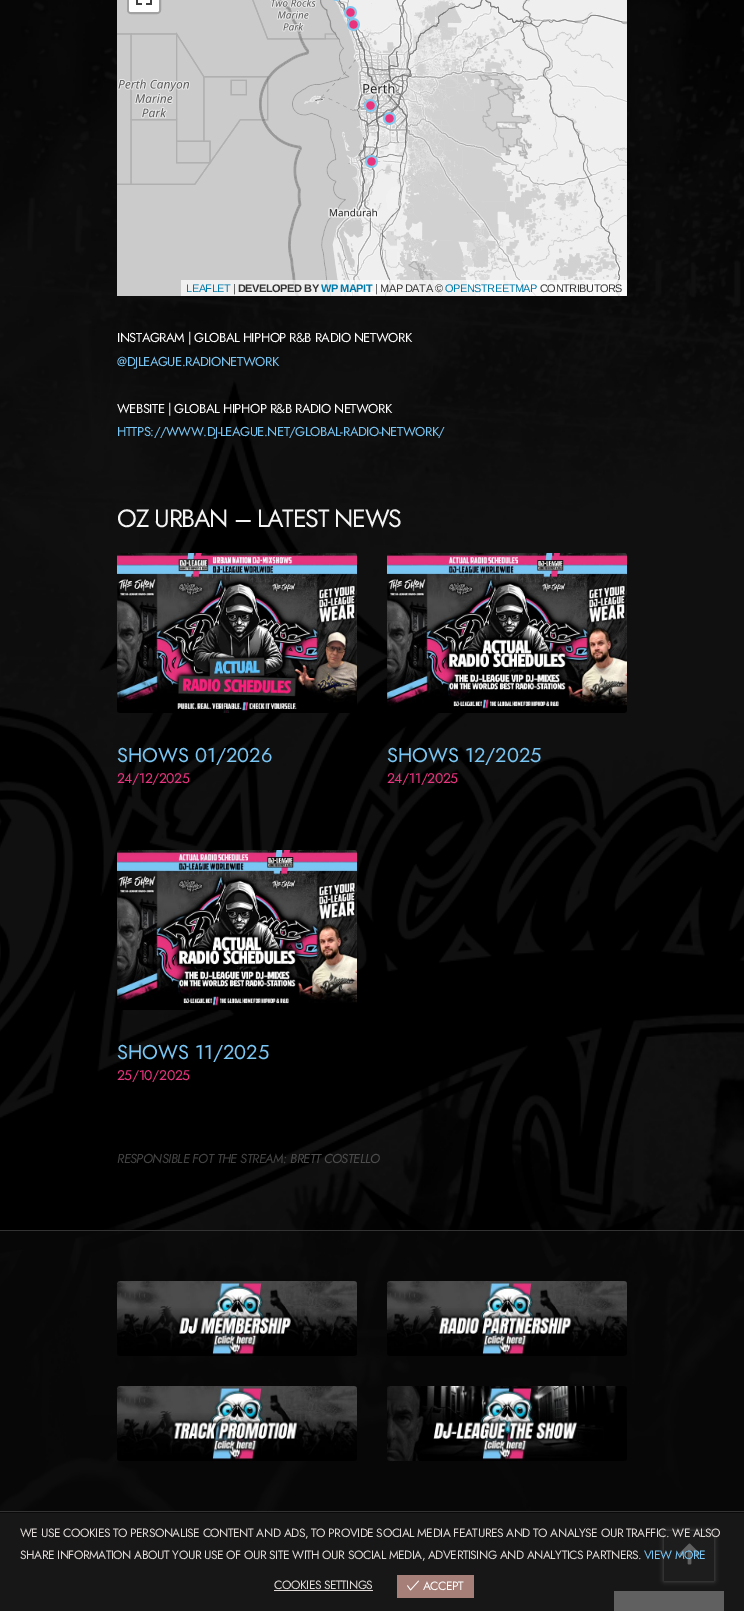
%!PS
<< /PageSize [744 1611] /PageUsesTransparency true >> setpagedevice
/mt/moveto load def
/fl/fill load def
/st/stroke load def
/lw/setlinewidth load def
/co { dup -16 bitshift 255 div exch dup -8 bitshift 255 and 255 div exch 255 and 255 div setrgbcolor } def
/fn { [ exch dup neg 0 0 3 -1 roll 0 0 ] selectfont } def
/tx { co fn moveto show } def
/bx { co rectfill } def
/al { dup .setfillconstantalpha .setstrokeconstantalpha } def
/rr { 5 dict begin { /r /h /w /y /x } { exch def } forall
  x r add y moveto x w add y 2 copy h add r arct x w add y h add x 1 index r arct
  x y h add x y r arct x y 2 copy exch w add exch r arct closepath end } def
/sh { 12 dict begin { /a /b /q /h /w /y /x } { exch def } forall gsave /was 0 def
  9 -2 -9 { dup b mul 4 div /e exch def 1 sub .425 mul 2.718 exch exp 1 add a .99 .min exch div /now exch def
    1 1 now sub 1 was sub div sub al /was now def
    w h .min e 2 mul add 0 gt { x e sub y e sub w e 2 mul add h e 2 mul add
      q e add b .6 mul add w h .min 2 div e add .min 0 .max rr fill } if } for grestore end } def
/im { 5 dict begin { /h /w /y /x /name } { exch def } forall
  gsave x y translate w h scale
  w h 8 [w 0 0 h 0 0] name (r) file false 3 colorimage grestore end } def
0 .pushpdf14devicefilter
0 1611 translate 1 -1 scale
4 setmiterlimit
0 0 744 1611 16#FFFFFF bx
(media/1.raw) 0 0 744 1511 im
(media/2.raw) 117 0 162 88 im
(media/3.raw) 279 0 256 88 im
(media/4.raw) 535 0 92 88 im
(media/5.raw) 117 88 162 208 im
(media/6.raw) 279 88 256 208 im
(media/7.raw) 535 88 92 208 im
(media/8.raw) 333 0 7 1 im
(media/9.raw) 344 6 13 13 im
(media/10.raw) 347 18 13 13 im
(media/11.raw) 364 99 13 13 im
(media/12.raw) 383 112 13 13 im
(media/13.raw) 365 155 13 13 im
16#A2A2A2 co
2 lw
128 -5 32 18 3 rr st
16#FFFFFF co
129 -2 30 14 2 rr fl
(media/14.raw) 136 0 16 5 im
0.7 al
181 280 446 16 16#FFFFFF bx
1 al
(media/15.raw) 117 553 240 160 im
(media/16.raw) 387 553 240 160 im
(media/17.raw) 117 850 240 160 im
0.68 al
0 1231 744 280 16#0A0A0A bx
1 al
0 1230 744 1 16#333333 bx
(media/18.raw) 117 1281 240 75 im
(media/19.raw) 387 1281 240 75 im
(media/20.raw) 117 1386 240 75 im
(media/21.raw) 387 1386 240 75 im
0 1512 744 99 16#0A0A0A bx
0 1511 744 1 16#333333 bx
16#DDDDDD co
664 1531 50 50 0 2.5 1 sh
664 1531 50 50 16#1F1F1F bx
(media/22.raw) 679 1543 21 22 im
614 1591 110 20 16#FFFFFF bx
0.7 al
0 1513 744 98 16#1C1C1C bx
1 al
274 1590 99 1 16#E1DCD9 bx
397 1575 77 23 16#A67F78 bx
(media/23.raw) 407 1580 12 11 im
/LiberationSans-Regular 11 fn
16#0078A8 co
186 292 mt -.48 0 (LEAFLET) ashow
16#333333 co
233 292 mt -.48 0 (|) ashow
/LiberationSans-Bold 11 fn
238 292 mt -.48 0 (DEVELOPED BY) ashow
16#0078A8 co
321 292 mt -.48 0 (WP MAPIT) ashow
/LiberationSans-Regular 11 fn
16#333333 co
375 292 mt -.48 0 (| MAP DATA ©) ashow
16#0078A8 co
445 292 mt -.48 0 (OPENSTREETMAP) ashow
16#333333 co
540 292 mt -.48 0 (CONTRIBUTORS) ashow
/Jost-Regular 13 fn
16#FFFFFF co
117 342 mt -.48 0 (INSTAGRAM | GLOBAL HIPHOP R&B RADIO NETWORK) ashow
16#79C6F4 co
117 366 mt -.48 0 (@DJLEAGUE.RADIONETWORK) ashow
16#FFFFFF co
117 413 mt -.48 0 (WEBSITE | GLOBAL HIPHOP R&B RADIO NETWORK) ashow
16#79C6F4 co
117 436 mt -.48 0 (HTTPS://WWW.DJ-LEAGUE.NET/GLOBAL-RADIO-NETWORK/) ashow
/Jost-Regular 25 fn
16#F4F4F4 co
117 527 mt -1.25 0 (OZ URBAN – LATEST NEWS) ashow
(SHOWS 01/2026) 117 762 /Jost-Regular 20 16#79C6F4 tx
/Jost-Regular 14 fn
16#E7347E co
117 783 mt -.48 0 (24/12/2025) ashow
(SHOWS 12/2025) 387 762 /Jost-Regular 20 16#79C6F4 tx
/Jost-Regular 14 fn
16#E7347E co
387 783 mt -.48 0 (24/11/2025) ashow
(SHOWS 11/2025) 117 1059 /Jost-Regular 20 16#79C6F4 tx
/Jost-Regular 14 fn
16#E7347E co
117 1080 mt -.48 0 (25/10/2025) ashow
/Jost-Italic 13 fn
16#444444 co
117 1163 mt -.48 0 (RESPONSIBLE FOT THE STREAM:) ashow
16#4C4C4C co
290 1163 mt -.48 0 (BRETT COSTELLO) ashow
/Jost-Regular 12 fn
16#E1DCD9 co
20 1537 mt -.48 0 (WE USE COOKIES TO PERSONALISE CONTENT AND ADS, TO PROVIDE SOCIAL MEDIA FEATURES AND TO ANALYSE OUR TRAFFIC. WE ALSO) ashow
20 1559 mt -.48 0 (SHARE INFORMATION ABOUT YOUR USE OF OUR SITE WITH OUR SOCIAL MEDIA, ADVERTISING AND ANALYTICS PARTNERS.) ashow
16#79C6F4 co
644 1559 mt -.48 0 (VIEW MORE) ashow
16#E1DCD9 co
274 1589 mt -.48 0 (COOKIES SETTINGS) ashow
16#FFFFFF co
423 1590 mt -.48 0 (ACCEPT) ashow
.poppdf14devicefilter showpage
